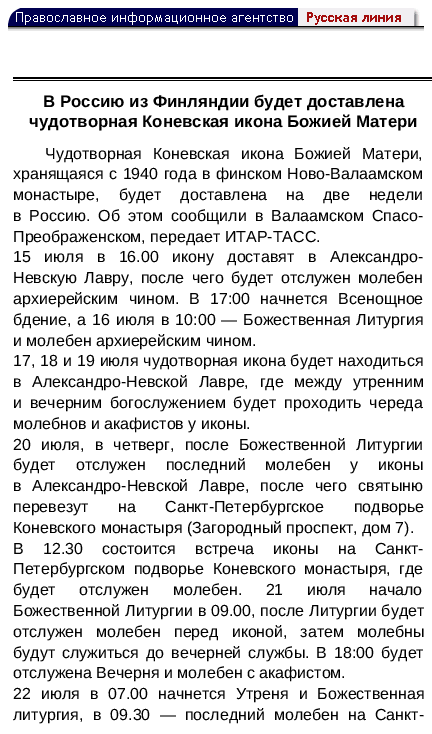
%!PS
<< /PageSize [432 734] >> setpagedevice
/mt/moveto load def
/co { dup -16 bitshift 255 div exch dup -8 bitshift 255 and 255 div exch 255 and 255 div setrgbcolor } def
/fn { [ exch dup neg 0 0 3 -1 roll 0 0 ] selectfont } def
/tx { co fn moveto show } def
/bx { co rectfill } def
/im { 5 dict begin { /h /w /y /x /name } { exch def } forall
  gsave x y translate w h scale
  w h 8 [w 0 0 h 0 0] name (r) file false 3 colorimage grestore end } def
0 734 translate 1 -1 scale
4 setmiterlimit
0 0 432 734 16#FFFFFF bx
(media/1.raw) 8 8 412 18 im
8 26 416 1 16#000000 bx
8 27 416 1 16#808080 bx
8 28 416 1 16#A2A2A2 bx
8 29 416 1 16#DDDDDD bx
8 30 416 1 16#E8E8E8 bx
13 77 419 2 16#000000 bx
13 80 419 1 16#000000 bx
(В Россию из Финляндии будет доставлена) 43 107 /LiberationSans-Bold 16.8 16#000000 tx
(чудотворная Коневская икона Божией Матери) 29 127 /LiberationSans-Bold 16.8 16#000000 tx
/LiberationSans-Regular 16 fn
45 159 mt 6.5 0 32 (Чудотворная Коневская икона Божией Матери,) widthshow
13 179 mt 1 0 32 (хранящаяся с 1940 года в финском Ново-Валаамском) widthshow
13 200 mt 14.5 0 32 (монастыре, будет доставлена на две недели) widthshow
13 221 mt 3.5 0 32 (в Россию. Об этом сообщили в Валаамском Спасо-) widthshow
(Преображенском, передает ИТАР-ТАСС.) 13 242 /LiberationSans-Regular 16 16#000000 tx
13 262 mt 9 0 32 (15 июля в 16.00 икону доставят в Александро-) widthshow
13 283 mt 2.75 0 32 (Невскую Лавру, после чего будет отслужен молебен) widthshow
13 304 mt 5.75 0 32 (архиерейским чином. В 17:00 начнется Всенощное) widthshow
13 325 mt 1.5 0 32 (бдение, а 16 июля в 10:00 — Божественная Литургия) widthshow
(и молебен архиерейским чином.) 13 346 /LiberationSans-Regular 16 16#000000 tx
13 366 mt .5 0 32 (17, 18 и 19 июля чудотворная икона будет находиться) widthshow
13 387 mt 6.25 0 32 (в Александро-Невской Лавре, где между утренним) widthshow
13 408 mt 3.5 0 32 (и вечерним богослужением будет проходить череда) widthshow
(молебнов и акафистов у иконы.) 13 429 /LiberationSans-Regular 16 16#000000 tx
13 450 mt 5.75 0 32 (20 июля, в четверг, после Божественной Литургии) widthshow
13 470 mt 15.5 0 32 (будет отслужен последний молебен у иконы) widthshow
13 491 mt 6.5 0 32 (в Александро-Невской Лавре, после чего святыню) widthshow
13 512 mt 25 0 32 (перевезут на Санкт-Петербургское подворье) widthshow
(Коневского монастыря \(Загородный проспект, дом 7\).) 13 533 /LiberationSans-Regular 16 16#000000 tx
13 554 mt 14.75 0 32 (В 12.30 состоится встреча иконы на Санкт-) widthshow
13 574 mt 4 0 32 (Петербургском подворье Коневского монастыря, где) widthshow
13 595 mt 19 0 32 (будет отслужен молебен. 21 июля начало) widthshow
13 616 mt .5 0 32 (Божественной Литургии в 09.00, после Литургии будет) widthshow
13 637 mt 8.5 0 32 (отслужен молебен перед иконой, затем молебны) widthshow
13 658 mt 2.5 0 32 (будут служиться до вечерней службы. В 18:00 будет) widthshow
(отслужена Вечерня и молебен с акафистом.) 13 678 /LiberationSans-Regular 16 16#000000 tx
13 699 mt 5.5 0 32 (22 июля в 07.00 начнется Утреня и Божественная) widthshow
13 720 mt 4.75 0 32 (литургия, в 09.30 — последний молебен на Санкт-) widthshow
showpage
